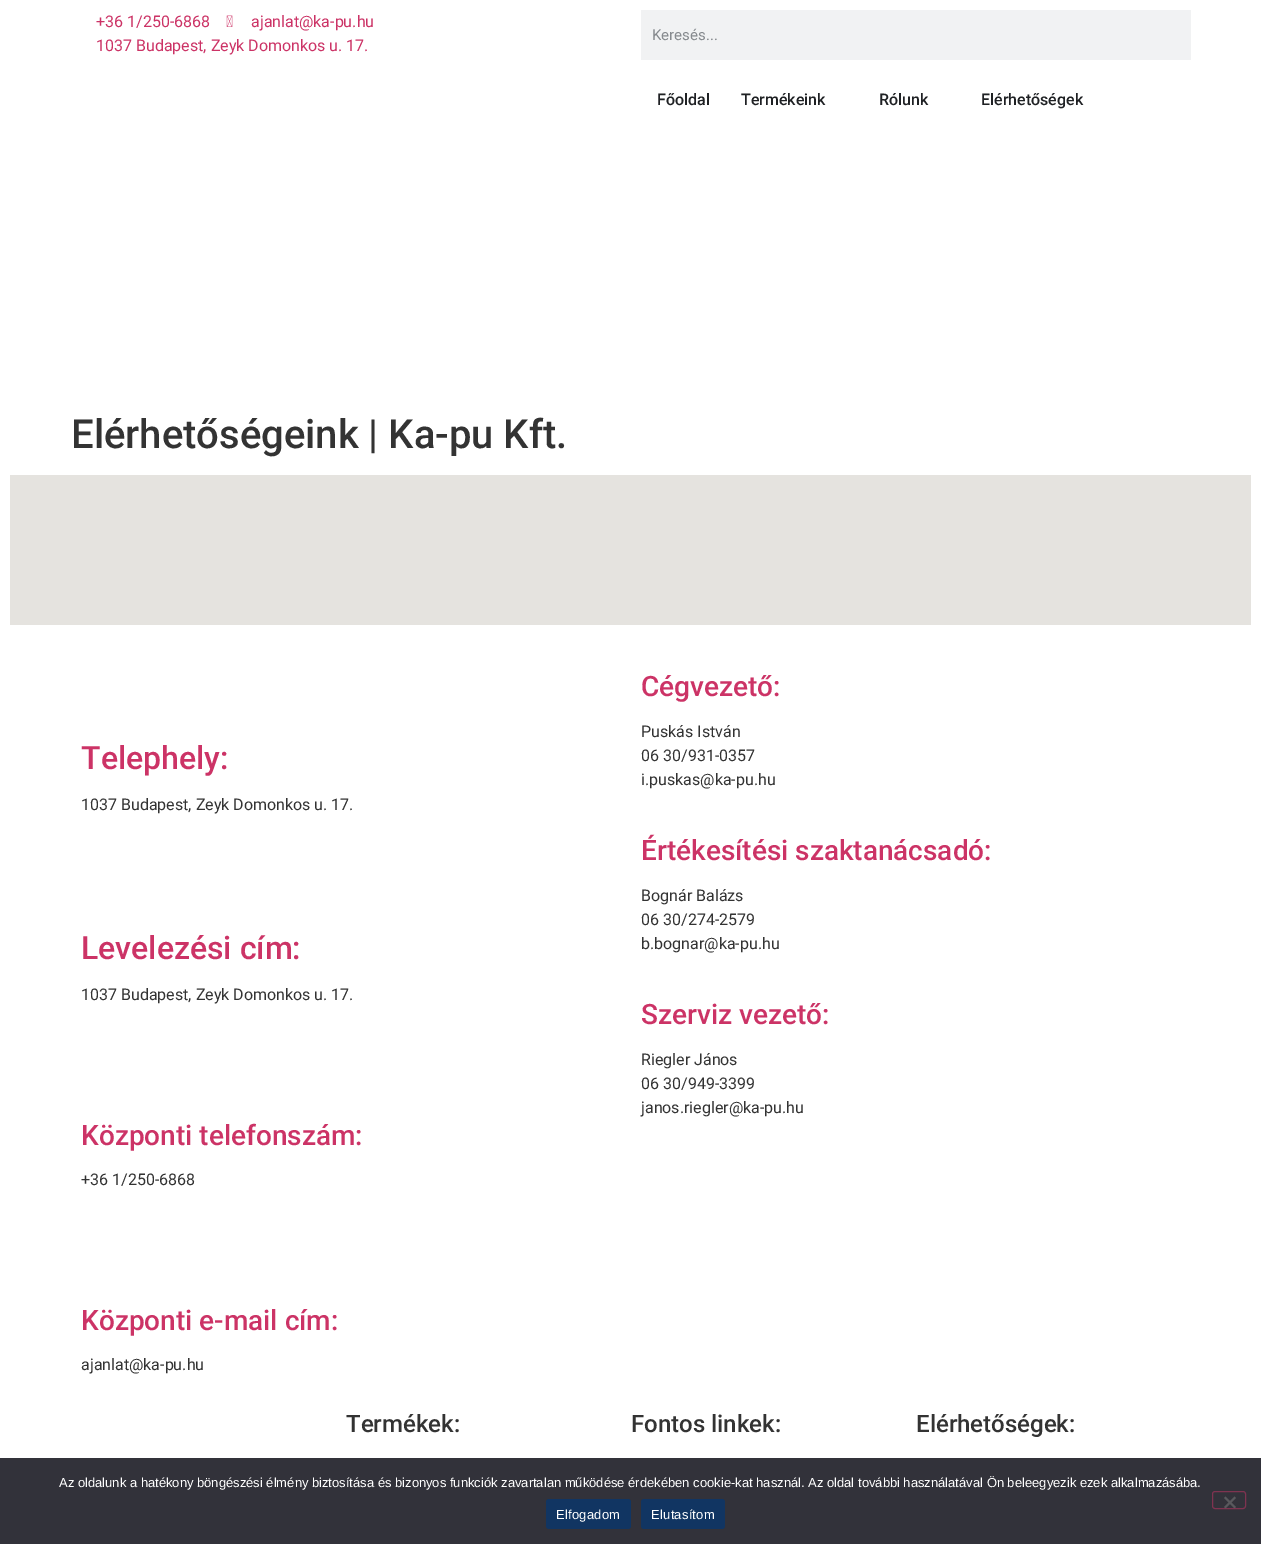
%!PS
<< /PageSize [1261 1544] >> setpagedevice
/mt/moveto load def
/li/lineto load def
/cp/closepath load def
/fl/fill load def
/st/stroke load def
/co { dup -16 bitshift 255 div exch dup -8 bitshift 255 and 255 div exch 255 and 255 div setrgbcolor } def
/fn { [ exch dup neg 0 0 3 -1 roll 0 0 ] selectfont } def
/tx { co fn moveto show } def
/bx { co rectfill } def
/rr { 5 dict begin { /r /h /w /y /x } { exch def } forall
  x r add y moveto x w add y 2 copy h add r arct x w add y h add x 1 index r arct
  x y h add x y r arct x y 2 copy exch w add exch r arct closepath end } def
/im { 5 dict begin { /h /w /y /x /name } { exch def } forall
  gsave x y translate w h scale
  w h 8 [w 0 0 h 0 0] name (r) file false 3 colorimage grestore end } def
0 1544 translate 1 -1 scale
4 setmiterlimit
0 0 1261 1544 16#FFFFFF bx
(media/1.raw) 226 15 7 12 im
641 10 550 50 16#F1F2F3 bx
10 475 1241 150 16#E5E3DF bx
0 1458 1261 86 16#32323A bx
16#7F3350 co
1212.5 1491.5 33 17 2.5 rr st
16#59595D co
1234.5 1496.5 mt 1236 1498 li 1225.5 1508.5 li 1224 1507 li cp fl
1224 1498 mt 1225.5 1496.5 li 1236 1507 li 1234.5 1508.5 li cp fl
16#113562 co
546 1499 85 30 3 rr fl
641 1499 84 30 3 rr fl
(+36 1/250-6868) 96 27 /Roboto-Regular 16 16#CC3366 tx
(ajanlat@ka-pu.hu) 251 27 /Roboto-Regular 16 16#CC3366 tx
(1037 Budapest, Zeyk Domonkos u. 17.) 96 51 /Roboto-Regular 16 16#CC3366 tx
(Keresés...) 652 40 /Roboto-Regular 15 16#868A8E tx
(Főoldal) 657 105 /Roboto-Medium 16 16#1F2124 tx
(Termékeink) 741 105 /Roboto-Medium 16 16#1F2124 tx
(Rólunk) 879 105 /Roboto-Medium 16 16#1F2124 tx
(Elérhetőségek) 981 105 /Roboto-Medium 16 16#1F2124 tx
(Elérhetőségeink | Ka-pu Kft.) 71 448 /Roboto-Medium 40 16#333333 tx
(Telephely:) 81 769 /Roboto-Medium 32 16#CC3366 tx
(1037 Budapest, Zeyk Domonkos u. 17.) 81 810 /Roboto-Regular 16 16#333333 tx
(Levelezési cím:) 81 959 /Roboto-Medium 32 16#CC3366 tx
(1037 Budapest, Zeyk Domonkos u. 17.) 81 1000 /Roboto-Regular 16 16#333333 tx
(Központi telefonszám:) 81 1145 /Roboto-Medium 28 16#CC3366 tx
(+36 1/250-6868) 81 1185 /Roboto-Regular 16 16#333333 tx
(Központi e-mail cím:) 81 1330 /Roboto-Medium 28 16#CC3366 tx
(ajanlat@ka-pu.hu) 81 1370 /Roboto-Regular 16 16#333333 tx
(Cégvezető:) 641 696 /Roboto-Medium 28 16#CC3366 tx
(Puskás István) 641 737 /Roboto-Regular 16 16#333333 tx
(06 30/931-0357) 641 761 /Roboto-Regular 16 16#333333 tx
(i.puskas@ka-pu.hu) 641 785 /Roboto-Regular 16 16#333333 tx
(Értékesítési szaktanácsadó:) 641 860 /Roboto-Medium 28 16#CC3366 tx
(Bognár Balázs) 641 901 /Roboto-Regular 16 16#333333 tx
(06 30/274-2579) 641 925 /Roboto-Regular 16 16#333333 tx
(b.bognar@ka-pu.hu) 641 949 /Roboto-Regular 16 16#333333 tx
(Szerviz vezető:) 641 1024 /Roboto-Medium 28 16#CC3366 tx
(Riegler János) 641 1065 /Roboto-Regular 16 16#333333 tx
(06 30/949-3399) 641 1089 /Roboto-Regular 16 16#333333 tx
(janos.riegler@ka-pu.hu) 641 1113 /Roboto-Regular 16 16#333333 tx
(Termékek:) 346 1432 /Roboto-Medium 24 16#333333 tx
(Fontos linkek:) 631 1432 /Roboto-Medium 24 16#333333 tx
(Elérhetőségek:) 916 1432 /Roboto-Medium 24 16#333333 tx
(Az oldalunk a hatékony böngészési élmény biztosítása és bizonyos funkciók zavartalan működése érdekében cookie-kat használ. Az oldal további használatával Ön beleegyezik ezek alkalmazásába.) 59 1487 /LiberationSans-Regular 13 16#FFFFFF tx
556 1519 mt .25 0 (Elfogadom) ashow
651 1519 mt .25 0 (Elutasítom) ashow
showpage
